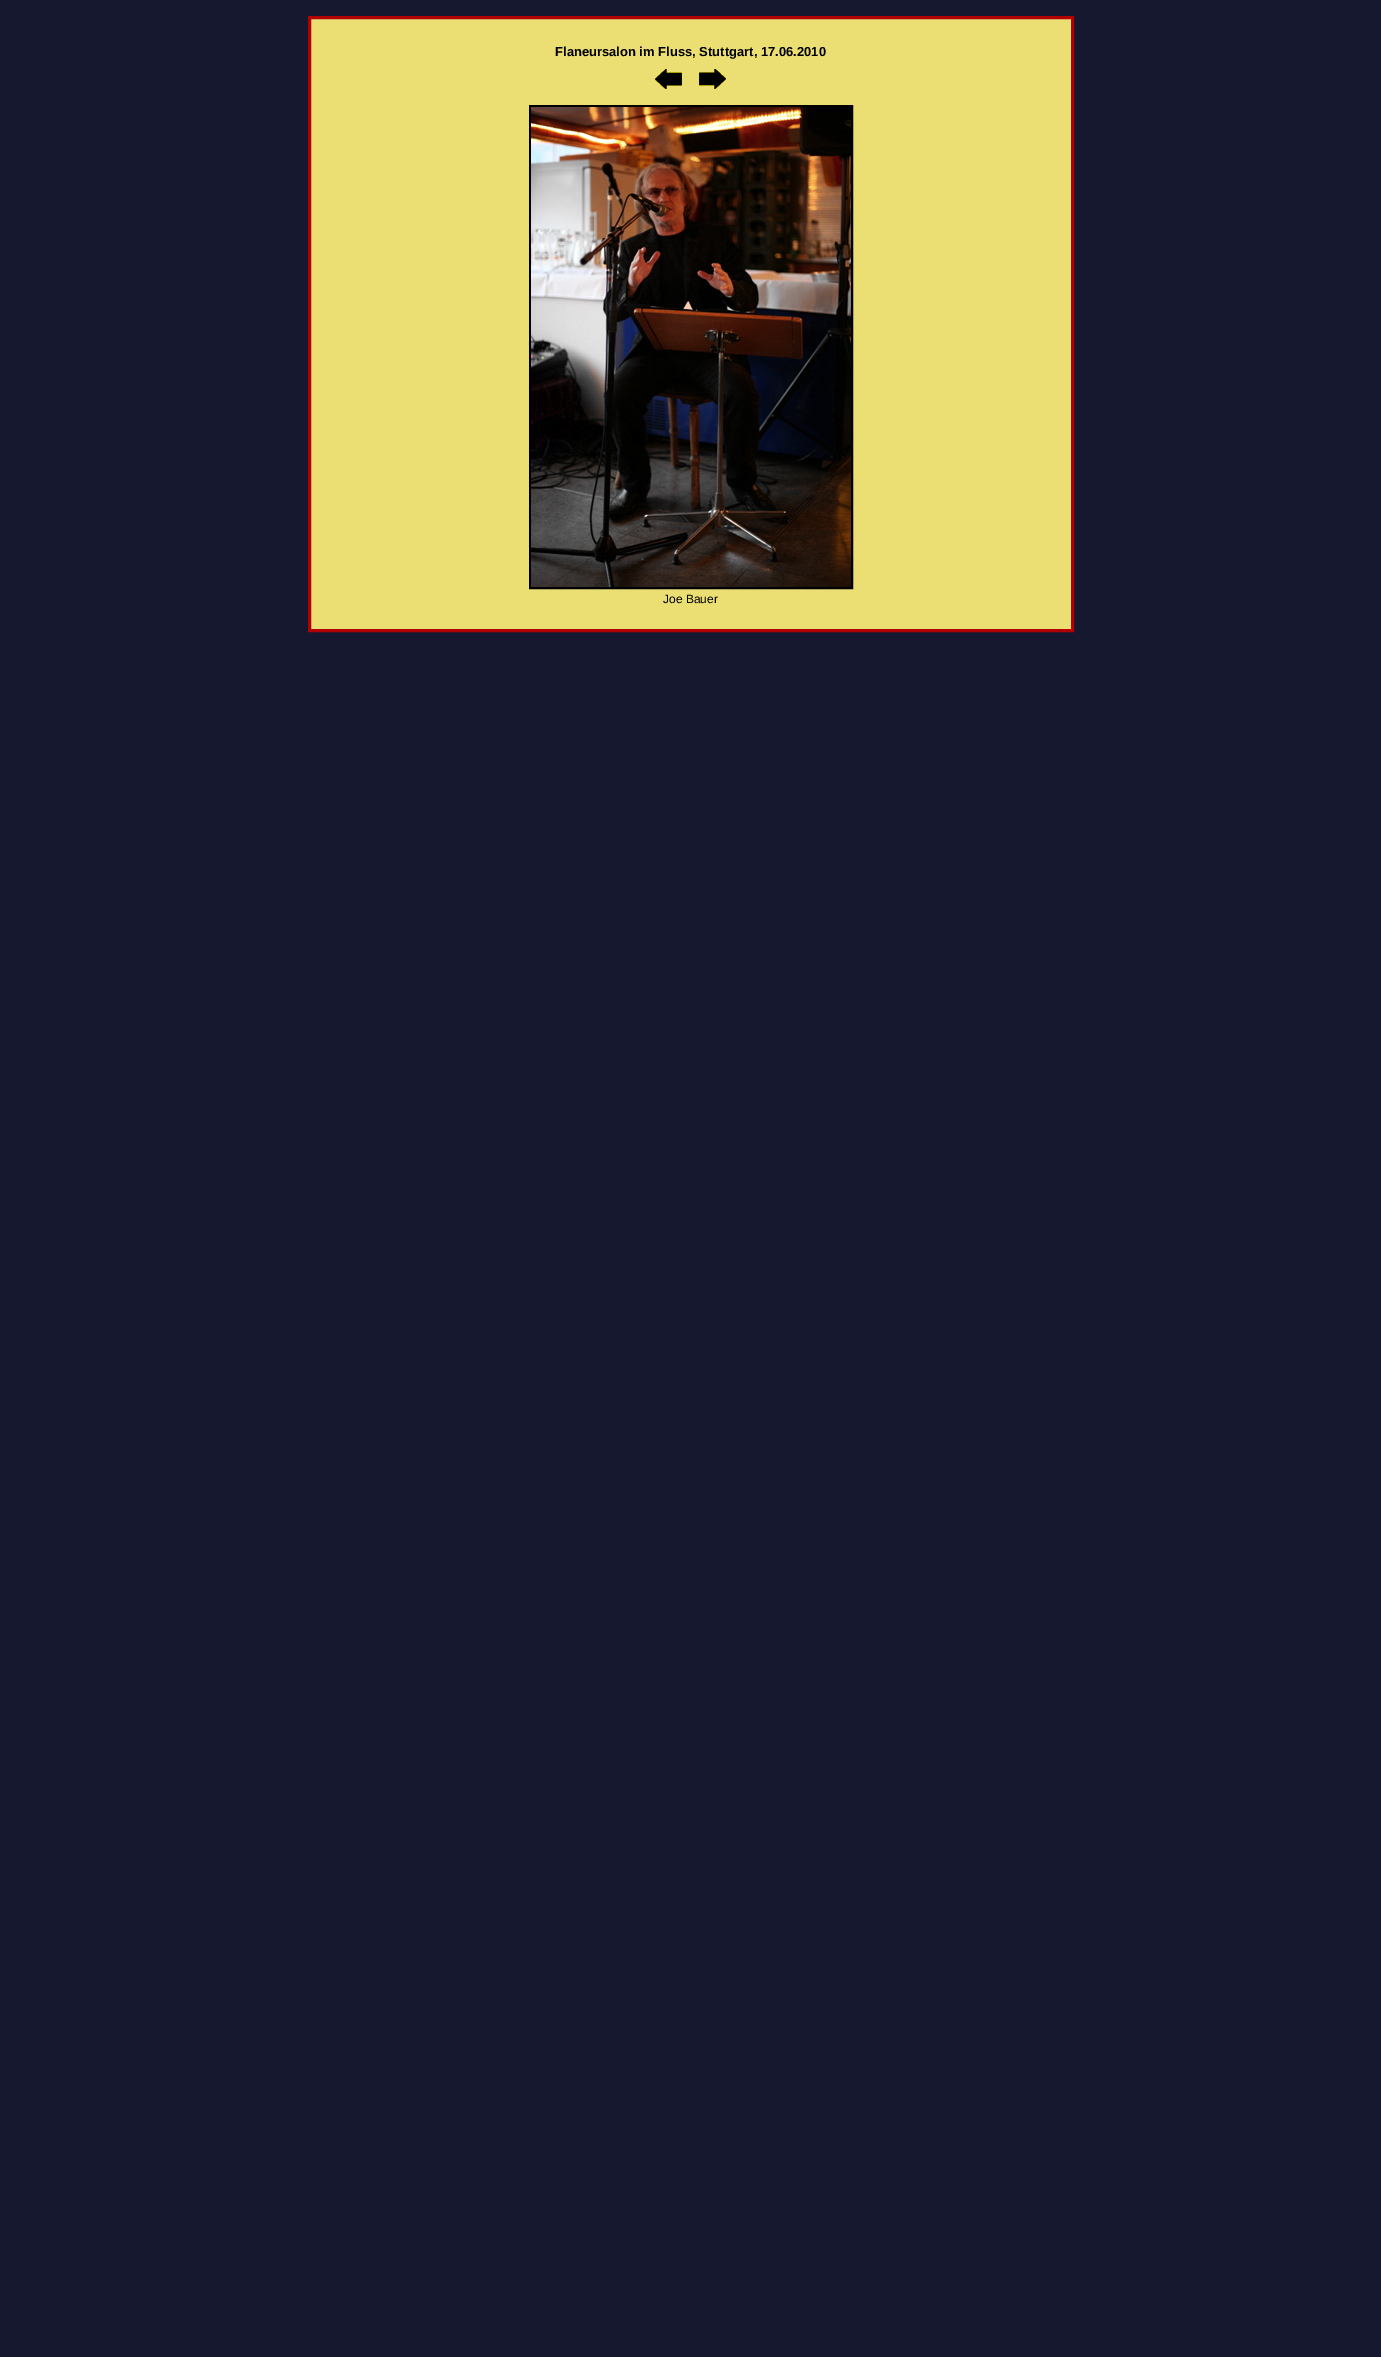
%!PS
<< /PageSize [1381 2357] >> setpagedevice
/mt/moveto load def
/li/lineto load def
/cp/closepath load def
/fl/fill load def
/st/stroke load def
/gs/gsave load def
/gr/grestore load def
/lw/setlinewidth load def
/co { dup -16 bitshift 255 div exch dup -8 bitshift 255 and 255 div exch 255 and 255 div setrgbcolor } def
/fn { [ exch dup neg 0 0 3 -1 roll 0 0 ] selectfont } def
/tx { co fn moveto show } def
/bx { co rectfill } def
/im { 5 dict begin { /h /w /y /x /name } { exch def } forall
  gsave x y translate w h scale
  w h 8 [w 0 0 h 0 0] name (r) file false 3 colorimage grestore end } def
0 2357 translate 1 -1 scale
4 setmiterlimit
0 0 1381 2357 16#16182F bx
16#EBDF73 co
309.5 17.5 mt 1072.5 17.5 li 1072.5 630.5 li 309.5 630.5 li cp gs fl gr
16#B20000 co
3 lw
st
(media/1.raw) 655 69 27 20 im
(media/2.raw) 699 69 27 20 im
16#000000 co
2 lw
530 106 322 482 rectstroke
(media/3.raw) 531 107 320 480 im
(Flaneursalon im Fluss, Stuttgart, 17.06.2010) 555 56 /LiberationSans-Bold 13 16#000000 tx
(Joe Bauer) 663 603 /LiberationSans-Regular 12 16#000000 tx
showpage
